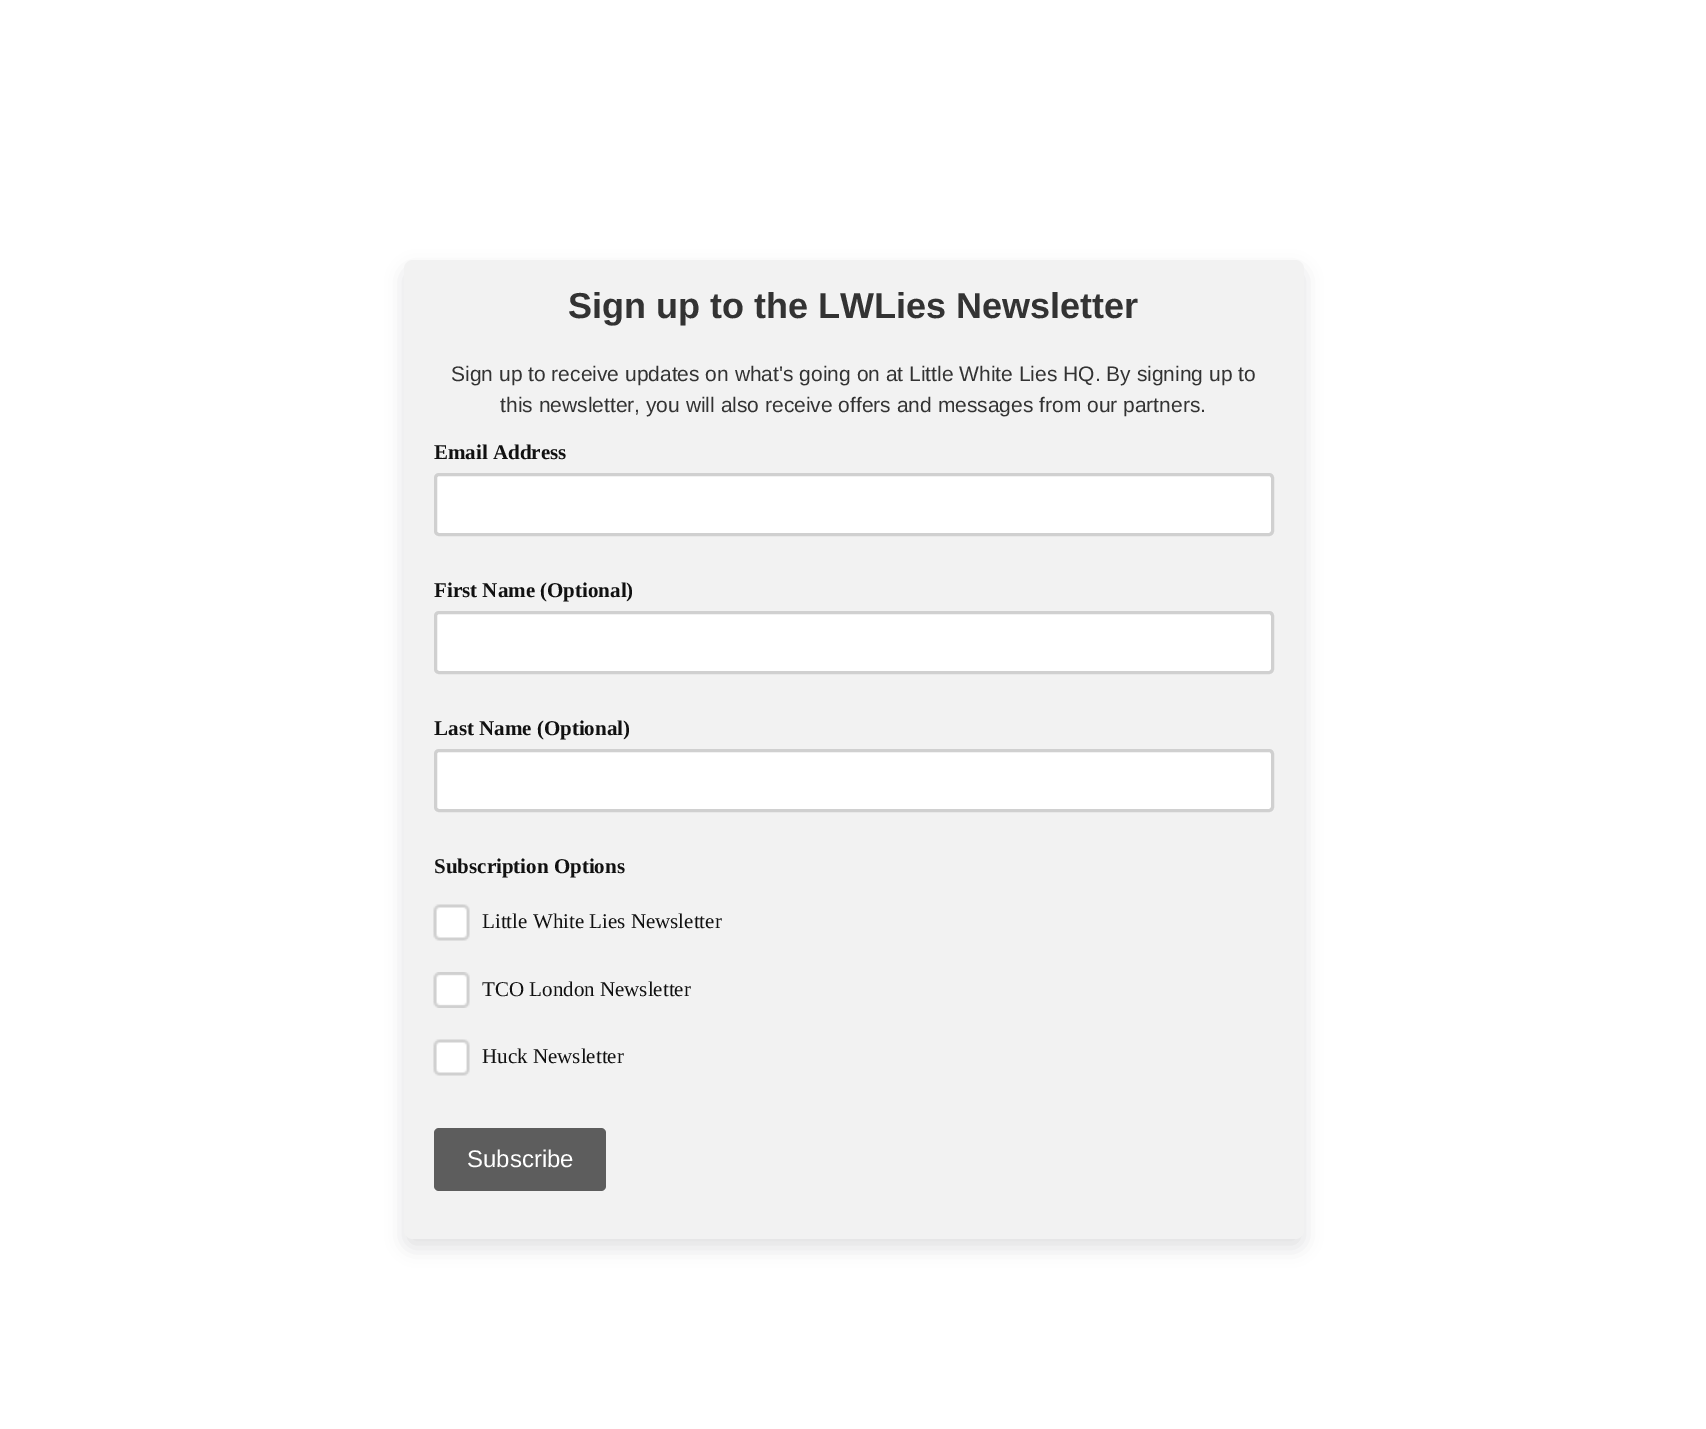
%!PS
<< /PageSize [1706 1429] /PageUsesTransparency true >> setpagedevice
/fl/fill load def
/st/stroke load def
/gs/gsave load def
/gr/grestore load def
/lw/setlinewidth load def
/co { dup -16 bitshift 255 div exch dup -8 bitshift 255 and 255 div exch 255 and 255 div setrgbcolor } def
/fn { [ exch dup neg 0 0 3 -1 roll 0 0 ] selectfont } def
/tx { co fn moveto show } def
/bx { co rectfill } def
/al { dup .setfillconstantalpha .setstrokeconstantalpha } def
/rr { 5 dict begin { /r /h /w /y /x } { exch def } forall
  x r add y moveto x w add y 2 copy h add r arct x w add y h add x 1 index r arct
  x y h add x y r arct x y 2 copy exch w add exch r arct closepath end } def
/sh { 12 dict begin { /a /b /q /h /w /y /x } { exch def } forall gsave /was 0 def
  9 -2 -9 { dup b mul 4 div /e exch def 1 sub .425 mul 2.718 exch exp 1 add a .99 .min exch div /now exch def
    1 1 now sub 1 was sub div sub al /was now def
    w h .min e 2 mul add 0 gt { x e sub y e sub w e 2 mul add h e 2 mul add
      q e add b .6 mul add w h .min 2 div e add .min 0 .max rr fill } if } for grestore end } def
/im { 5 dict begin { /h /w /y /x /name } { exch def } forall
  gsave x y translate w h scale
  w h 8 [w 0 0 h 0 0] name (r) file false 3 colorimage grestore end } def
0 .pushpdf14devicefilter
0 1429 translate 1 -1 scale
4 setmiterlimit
0 0 1706 1429 16#FFFFFF bx
16#0D1216 co
404 269 900 979 9 9 .12 sh
16#F2F2F2 co
404 260 900 979 9 rr fl
16#FFFFFF co
435.5 474.5 837 60 3.5 rr gs fl gr
16#D0D0D0 co
3 lw
st
16#FFFFFF co
435.5 612.5 837 60 3.5 rr gs fl gr
16#D0D0D0 co
st
16#FFFFFF co
435.5 750.5 837 60 3.5 rr gs fl gr
16#D0D0D0 co
st
(media/1.raw) 433 904 37 37 im
(media/2.raw) 433 972 37 36 im
(media/1.raw) 433 1039 37 37 im
16#5D5D5D co
434 1128 172 63 5 rr fl
(Sign up to the LWLies Newsletter) 568 318 /LiberationSans-Bold 36 16#333333 tx
(Sign up to receive updates on what's going on at Little White Lies HQ. By signing up to) 451 381 /LiberationSans-Regular 21 16#333333 tx
(this newsletter, you will also receive offers and messages from our partners.) 500 412 /LiberationSans-Regular 21 16#333333 tx
(Email Address) 434 459 /LiberationSerif-Bold 21 16#111111 tx
(First Name \(Optional\)) 434 597 /LiberationSerif-Bold 21 16#111111 tx
(Last Name \(Optional\)) 434 735 /LiberationSerif-Bold 21 16#111111 tx
(Subscription Options) 434 873 /LiberationSerif-Bold 21 16#111111 tx
(Little White Lies Newsletter) 482 928 /LiberationSerif-Regular 21 16#111111 tx
(TCO London Newsletter) 482 996 /LiberationSerif-Regular 21 16#111111 tx
(Huck Newsletter) 482 1063 /LiberationSerif-Regular 21 16#111111 tx
(Subscribe) 467 1167 /LiberationSans-Regular 24 16#FFFFFF tx
.poppdf14devicefilter showpage
